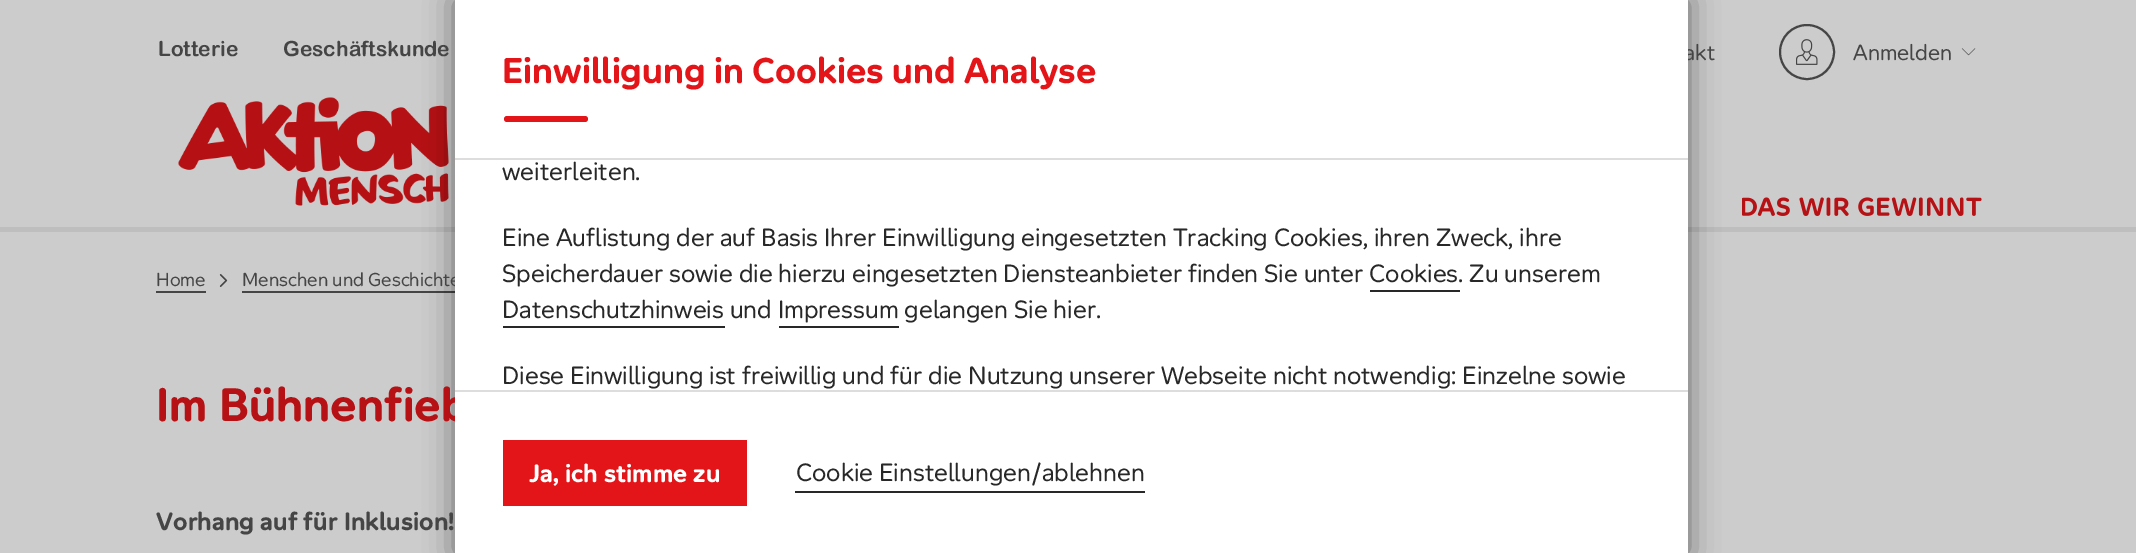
%!PS
<< /PageSize [2136 553] /PageUsesTransparency true >> setpagedevice
/fl/fill load def
/st/stroke load def
/lw/setlinewidth load def
/co { dup -16 bitshift 255 div exch dup -8 bitshift 255 and 255 div exch 255 and 255 div setrgbcolor } def
/fn { [ exch dup neg 0 0 3 -1 roll 0 0 ] selectfont } def
/tx { co fn moveto show } def
/bx { co rectfill } def
/al { dup .setfillconstantalpha .setstrokeconstantalpha } def
/ci { newpath 0 360 arc closepath } def
/rr { 5 dict begin { /r /h /w /y /x } { exch def } forall
  x r add y moveto x w add y 2 copy h add r arct x w add y h add x 1 index r arct
  x y h add x y r arct x y 2 copy exch w add exch r arct closepath end } def
/sh { 12 dict begin { /a /b /q /h /w /y /x } { exch def } forall gsave /was 0 def
  9 -2 -9 { dup b mul 4 div /e exch def 1 sub .425 mul 2.718 exch exp 1 add a .99 .min exch div /now exch def
    1 1 now sub 1 was sub div sub al /was now def
    w h .min e 2 mul add 0 gt { x e sub y e sub w e 2 mul add h e 2 mul add
      q e add b .6 mul add w h .min 2 div e add .min 0 .max rr fill } if } for grestore end } def
/im { 5 dict begin { /h /w /y /x /name } { exch def } forall
  gsave x y translate w h scale
  w h 8 [w 0 0 h 0 0] name (r) file false 3 colorimage grestore end } def
0 .pushpdf14devicefilter
0 553 translate 1 -1 scale
4 setmiterlimit
0 0 2136 553 16#CCCCCC bx
16#454545 co
2 lw
1807 52 27 ci st
(media/1.raw) 1796 39 22 26 im
(media/2.raw) 1961 48 15 8 im
(media/3.raw) 178 97 271 109 im
(media/4.raw) 1742 197 240 19 im
0 227 2136 5 16#BEBEBE bx
156 291 50 2 16#454545 bx
(media/5.raw) 219 274 9 13 im
242 291 213 2 16#454545 bx
16#000000 co
455 0 1233 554 0 15 .5 sh
(Lotterie) 158 56 /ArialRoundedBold-Bold 21 16#454545 tx
(Geschäftskunde) 283 56 /ArialRoundedBold-Bold 21 16#454545 tx
(akt) 1684 60 /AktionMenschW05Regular-Regular 21 16#454545 tx
(Anmelden) 1853 60 /AktionMenschW05Regular-Regular 21 16#454545 tx
(Home) 156 286 /AktionMenschW05Regular-Regular 18 16#454545 tx
(Menschen und Geschichte) 242 286 /AktionMenschW05Regular-Regular 18 16#454545 tx
(Im Bühnenfieb) 156 421 /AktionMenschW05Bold-Bold 45 16#B61114 tx
(Vorhang auf für Inklusion!) 156 530 /AktionMenschW05Bold-Bold 24 16#454545 tx
455 0 1233 553 16#FFFFFF bx
455 158 1233 2 16#DDDDDD bx
(Einwilligung in Cookies und Analyse) 502 83 /AktionMenschW05Bold-Bold 34.5 16#E31519 tx
504 116 84 6 3 rr fl
(weiterleiten.) 502 180 /AktionMenschW05Regular-Regular 24 16#282828 tx
(Eine Auflistung der auf Basis Ihrer Einwilligung eingesetzten Tracking Cookies, ihren Zweck, ihre) 502 246 /AktionMenschW05Regular-Regular 24 16#282828 tx
(Speicherdauer sowie die hierzu eingesetzten Diensteanbieter finden Sie unter Cookies. Zu unserem) 502 282 /AktionMenschW05Regular-Regular 24 16#282828 tx
1370 290 90 2 16#282828 bx
(Datenschutzhinweis und Impressum gelangen Sie hier.) 502 318 /AktionMenschW05Regular-Regular 24 16#282828 tx
503 326 222 2 16#282828 bx
779 326 120 2 16#282828 bx
(Diese Einwilligung ist freiwillig und für die Nutzung unserer Webseite nicht notwendig: Einzelne sowie) 502 384 /AktionMenschW05Regular-Regular 24 16#282828 tx
455 390 1233 2 16#DDDDDD bx
503 440 244 66 16#E31519 bx
(Ja, ich stimme zu) 529 482 /AktionMenschW05Bold-Bold 24 16#FFFFFF tx
795 491 350 2 16#282828 bx
(Cookie Einstellungen/ablehnen) 796 481 /AktionMenschW05Regular-Regular 24 16#282828 tx
.poppdf14devicefilter showpage
